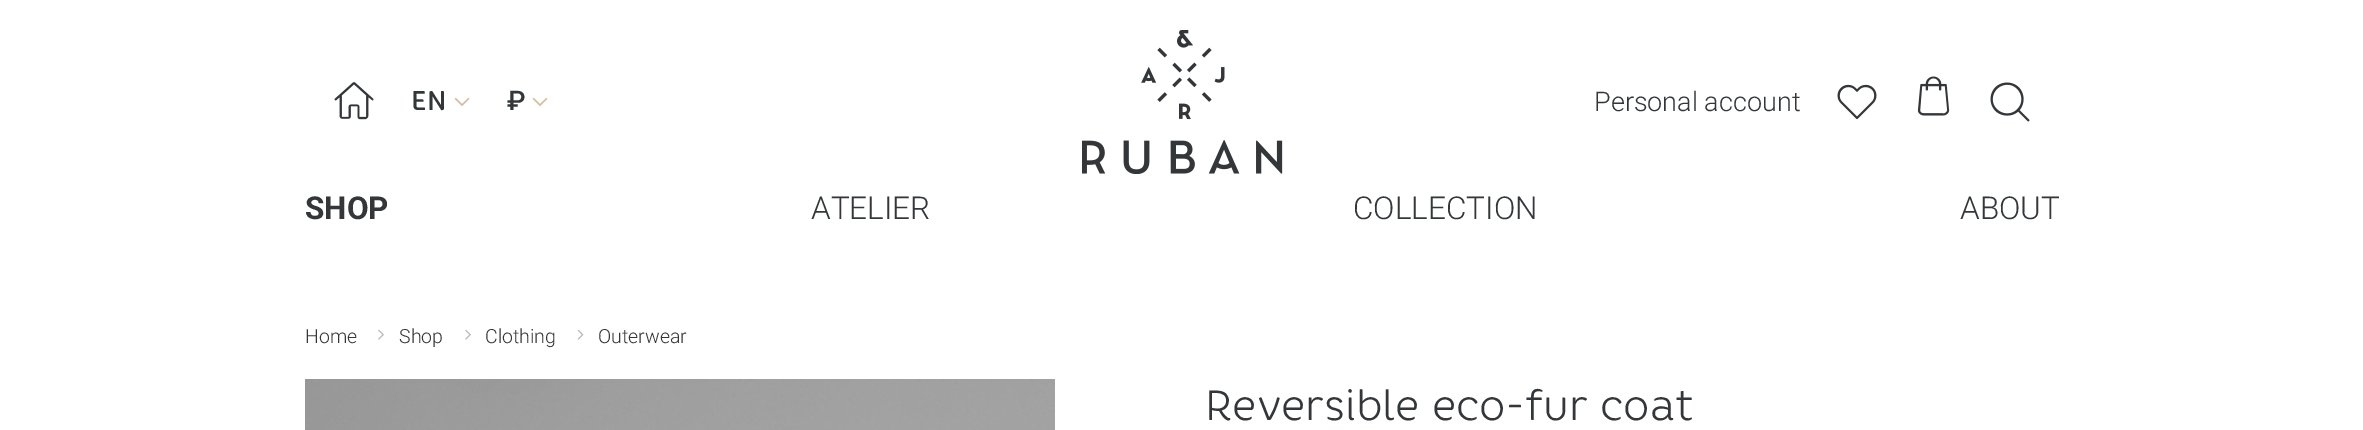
%!PS
<< /PageSize [2363 430] >> setpagedevice
/co { dup -16 bitshift 255 div exch dup -8 bitshift 255 and 255 div exch 255 and 255 div setrgbcolor } def
/fn { [ exch dup neg 0 0 3 -1 roll 0 0 ] selectfont } def
/tx { co fn moveto show } def
/bx { co rectfill } def
/im { 5 dict begin { /h /w /y /x /name } { exch def } forall
  gsave x y translate w h scale
  w h 8 [w 0 0 h 0 0] name (r) file false 3 colorimage grestore end } def
0 430 translate 1 -1 scale
4 setmiterlimit
0 0 2363 430 16#FFFFFF bx
(media/1.raw) 334 82 40 38 im
(media/2.raw) 454 97 16 10 im
(media/2.raw) 532 97 16 10 im
(media/3.raw) 1082 30 201 144 im
(media/4.raw) 1837 84 40 36 im
(media/5.raw) 1917 76 33 40 im
(media/6.raw) 1990 82 40 40 im
(media/7.raw) 378 329 6 11 im
(media/7.raw) 465 329 6 11 im
(media/8.raw) 577 329 7 11 im
(media/9.raw) 305 379 750 51 im
(EN) 411 110 /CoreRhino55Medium-Medium 27 16#343739 tx
(₽) 507 110 /Roboto-Medium 27 16#343739 tx
(Personal account) 1594 111 /Roboto-Light 27 16#343739 tx
(SHOP) 305 219 /Roboto-Bold 31.5 16#343739 tx
(ATELIER) 811 219 /Roboto-Light 31.5 16#343739 tx
(COLLECTION) 1353 219 /Roboto-Light 31.5 16#343739 tx
(ABOUT) 1960 219 /Roboto-Light 31.5 16#343739 tx
(Home) 305 343 /Roboto-Light 19.5 16#343739 tx
(Shop) 399 343 /Roboto-Light 19.5 16#343739 tx
(Clothing) 485 343 /Roboto-Light 19.5 16#343739 tx
(Outerwear) 598 343 /Roboto-Light 19.5 16#343739 tx
(Reversible eco-fur coat) 1205 420 /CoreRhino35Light-Light 42 16#343739 tx
showpage
